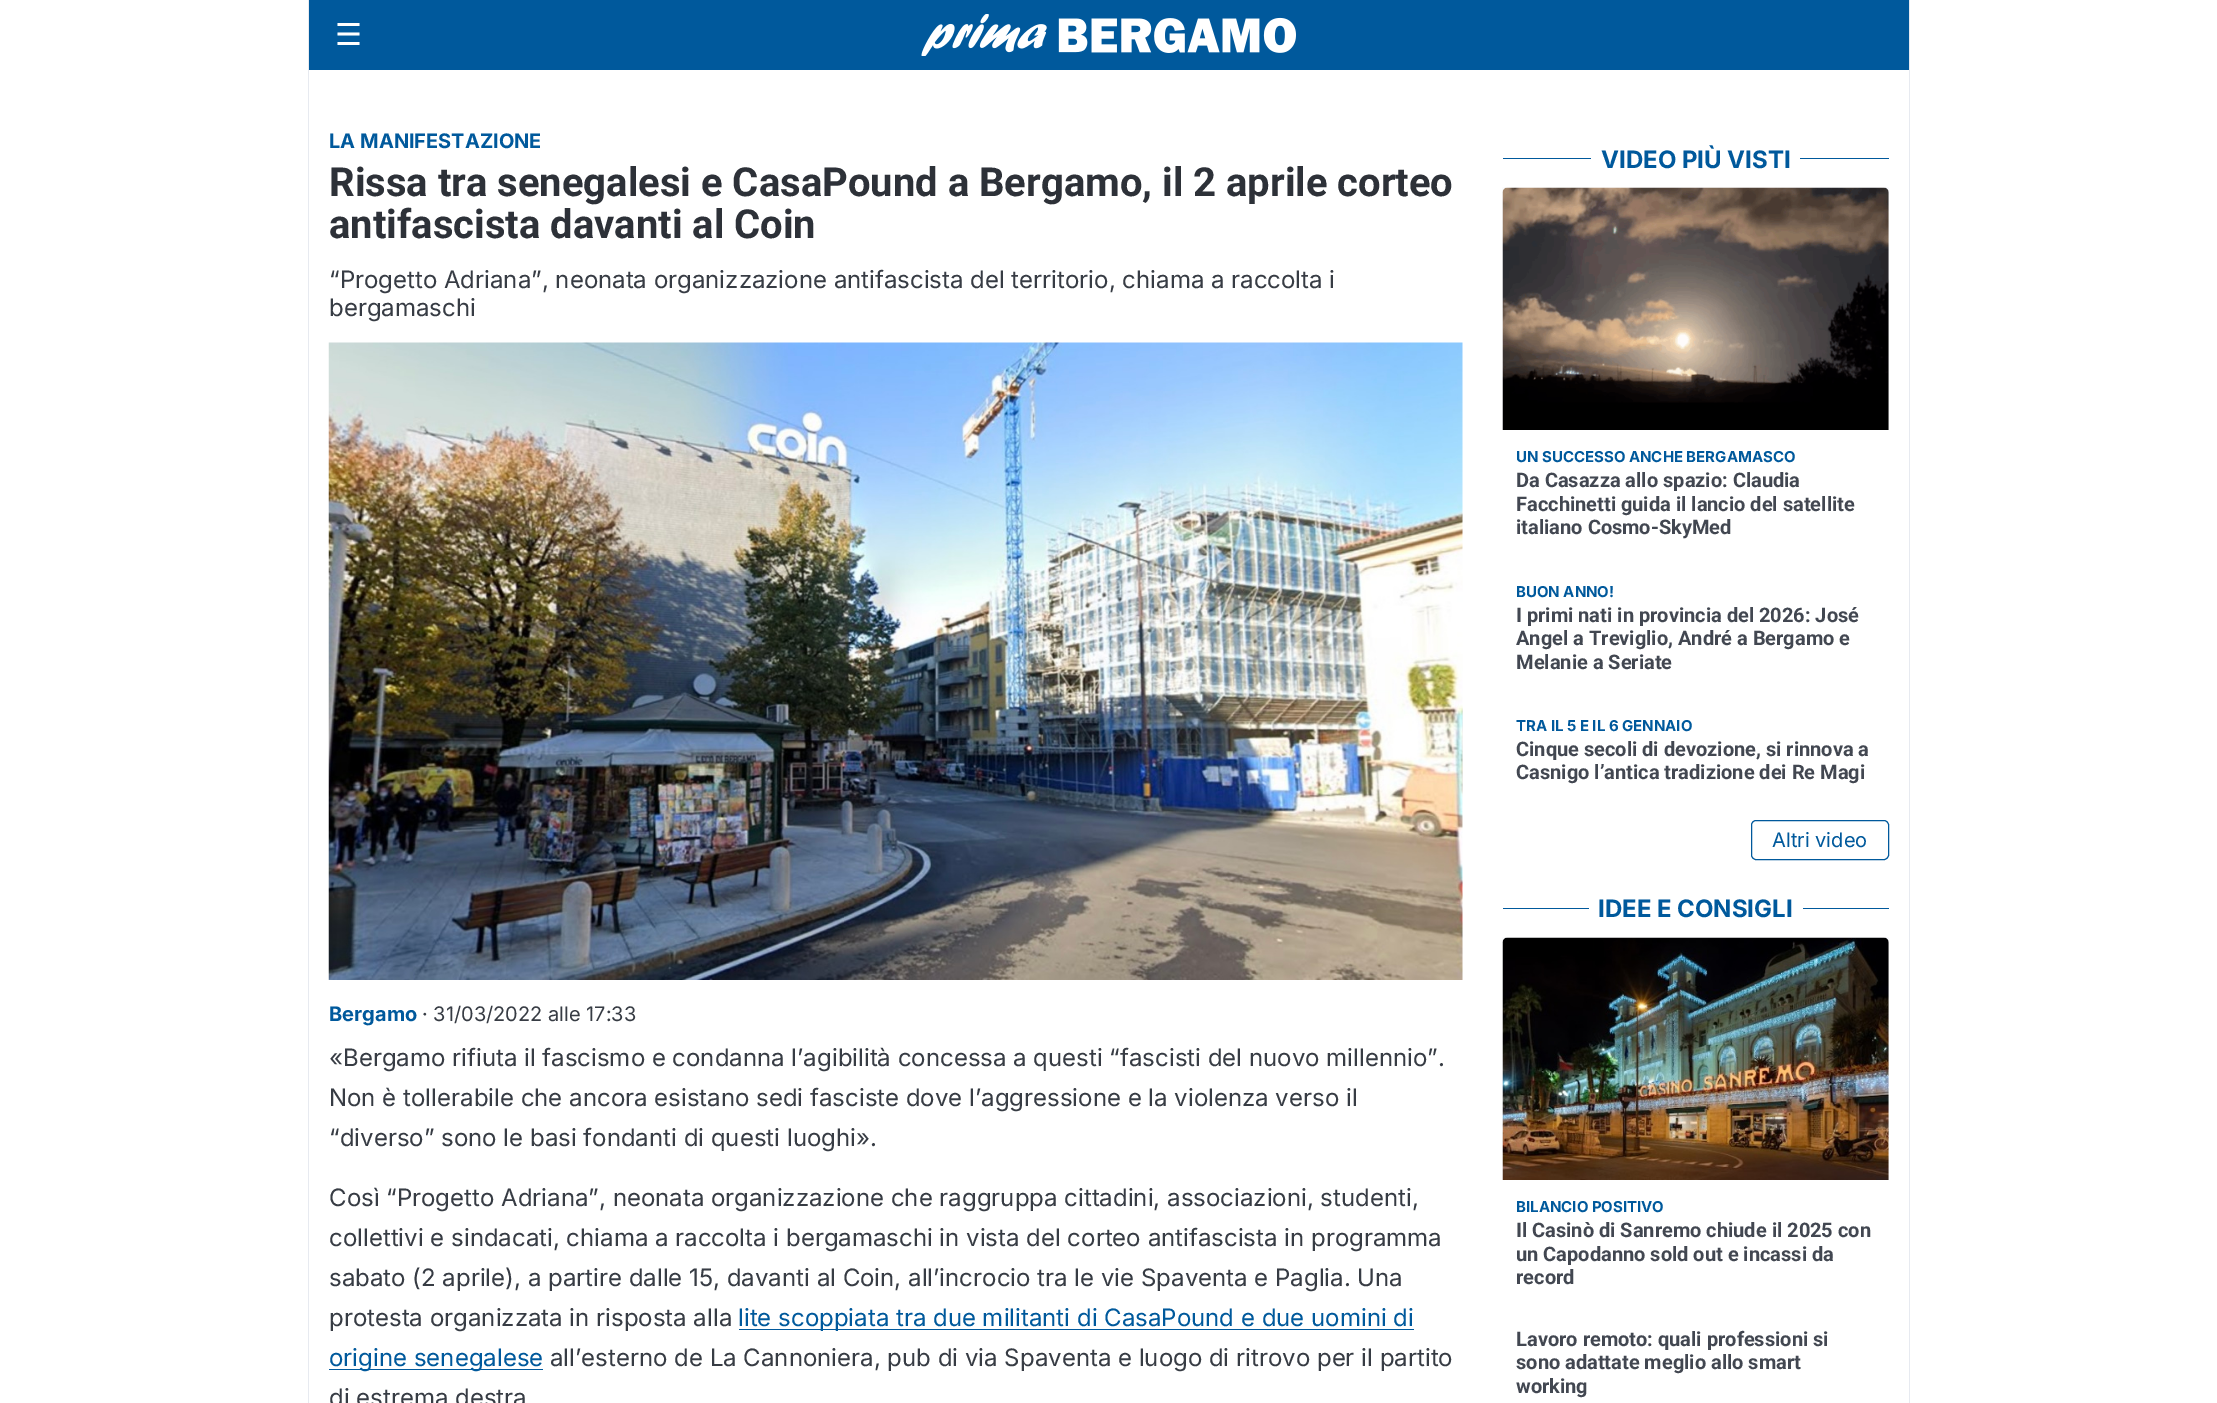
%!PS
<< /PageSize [2217 1403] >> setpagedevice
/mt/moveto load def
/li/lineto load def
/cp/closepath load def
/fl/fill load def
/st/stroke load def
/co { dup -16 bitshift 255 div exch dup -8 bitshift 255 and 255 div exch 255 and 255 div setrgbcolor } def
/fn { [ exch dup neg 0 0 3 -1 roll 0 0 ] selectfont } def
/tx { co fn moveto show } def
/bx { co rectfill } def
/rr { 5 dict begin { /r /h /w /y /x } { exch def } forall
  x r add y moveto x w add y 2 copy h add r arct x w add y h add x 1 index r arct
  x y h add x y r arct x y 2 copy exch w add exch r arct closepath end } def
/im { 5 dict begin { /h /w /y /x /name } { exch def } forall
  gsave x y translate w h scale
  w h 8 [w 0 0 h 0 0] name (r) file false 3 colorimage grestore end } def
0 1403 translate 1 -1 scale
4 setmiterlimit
0 0 2217 1403 16#FFFFFF bx
1909 0 1 90 16#E7EAF0 bx
308 0 1 90 16#E7EAF0 bx
309 0 1600 70 16#00599C bx
(media/1.raw) 921 14 375 42 im
16#E7EAF0 co
310 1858 mt 1910 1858 li 1910 90 li 1909 90 li 1909 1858 li cp fl
308 90 mt 308 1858 li 1908 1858 li 309 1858 li 309 90 li cp fl
(media/2.raw) 328 342 1135 638 im
739 1329 675 1 16#00599C bx
329 1369 214 1 16#00599C bx
1503 158 386 1 16#00599C bx
1591 158 209 1 16#FFFFFF bx
(media/3.raw) 1502 187 387 243 im
16#00599C co
1751.5 820.5 137 39 4.5 rr st
1503 908 386 1 16#00599C bx
1589 908 214 1 16#FFFFFF bx
(media/4.raw) 1502 937 387 243 im
(☰) 335 45 /DejaVuSans-Regular 30 16#FFFFFF tx
(LA MANIFESTAZIONE) 329 148 /Inter-Bold 20 16#00599C tx
(Rissa tra senegalesi e CasaPound a Bergamo, il 2 aprile corteo) 329 196 /Roboto-Bold 40 16#2D3138 tx
(antifascista davanti al Coin) 329 238 /Roboto-Bold 40 16#2D3138 tx
(“Progetto Adriana”, neonata organizzazione antifascista del territorio, chiama a raccolta i) 329 288 /Inter-Regular 24 16#373C44 tx
(bergamaschi) 329 316 /Inter-Regular 24 16#373C44 tx
(Bergamo) 329 1021 /Inter-Bold 20 16#00599C tx
(· 31/03/2022 alle 17:33) 422 1021 /Inter-Regular 20 16#373C44 tx
(«Bergamo rifiuta il fascismo e condanna l’agibilità concessa a questi “fascisti del nuovo millennio”.) 329 1066 /Inter-Regular 24 16#373C44 tx
(Non è tollerabile che ancora esistano sedi fasciste dove l’aggressione e la violenza verso il) 329 1106 /Inter-Regular 24 16#373C44 tx
(“diverso” sono le basi fondanti di questi luoghi».) 329 1146 /Inter-Regular 24 16#373C44 tx
(Così “Progetto Adriana”, neonata organizzazione che raggruppa cittadini, associazioni, studenti,) 329 1206 /Inter-Regular 24 16#373C44 tx
(collettivi e sindacati, chiama a raccolta i bergamaschi in vista del corteo antifascista in programma) 329 1246 /Inter-Regular 24 16#373C44 tx
(sabato \(2 aprile\), a partire dalle 15, davanti al Coin, all’incrocio tra le vie Spaventa e Paglia. Una) 329 1286 /Inter-Regular 24 16#373C44 tx
(protesta organizzata in risposta alla) 329 1326 /Inter-Regular 24 16#373C44 tx
(lite scoppiata tra due militanti di CasaPound e due uomini di) 738 1326 /Inter-Regular 24 16#00599C tx
(origine senegalese) 329 1366 /Inter-Regular 24 16#00599C tx
(all’esterno de La Cannoniera, pub di via Spaventa e luogo di ritrovo per il partito) 550 1366 /Inter-Regular 24 16#373C44 tx
(di estrema destra) 329 1406 /Inter-Regular 24 16#373C44 tx
(VIDEO PIÙ VISTI) 1601 168 /Inter-Bold 24 16#00599C tx
(UN SUCCESSO ANCHE BERGAMASCO) 1516 462 /Inter-Bold 15 16#00599C tx
(Da Casazza allo spazio: Claudia) 1516 487 /Roboto-Bold 20 16#424751 tx
(Facchinetti guida il lancio del satellite) 1516 511 /Roboto-Bold 20 16#424751 tx
(italiano Cosmo-SkyMed) 1516 534 /Roboto-Bold 20 16#424751 tx
(BUON ANNO!) 1516 597 /Inter-Bold 15 16#00599C tx
(I primi nati in provincia del 2026: José) 1516 622 /Roboto-Bold 20 16#424751 tx
(Angel a Treviglio, André a Bergamo e) 1516 645 /Roboto-Bold 20 16#424751 tx
(Melanie a Seriate) 1516 669 /Roboto-Bold 20 16#424751 tx
(TRA IL 5 E IL 6 GENNAIO) 1516 731 /Inter-Bold 15 16#00599C tx
(Cinque secoli di devozione, si rinnova a) 1516 756 /Roboto-Bold 20 16#424751 tx
(Casnigo l’antica tradizione dei Re Magi) 1516 779 /Roboto-Bold 20 16#424751 tx
(Altri video) 1772 847 /Inter-Regular 20 16#00599C tx
(IDEE E CONSIGLI) 1598 917 /Inter-Bold 24 16#00599C tx
(BILANCIO POSITIVO) 1516 1212 /Inter-Bold 15 16#00599C tx
(Il Casinò di Sanremo chiude il 2025 con) 1516 1237 /Roboto-Bold 20 16#424751 tx
(un Capodanno sold out e incassi da) 1516 1261 /Roboto-Bold 20 16#424751 tx
(record) 1516 1284 /Roboto-Bold 20 16#424751 tx
(Lavoro remoto: quali professioni si) 1516 1346 /Roboto-Bold 20 16#424751 tx
(sono adattate meglio allo smart) 1516 1369 /Roboto-Bold 20 16#424751 tx
(working) 1516 1393 /Roboto-Bold 20 16#424751 tx
showpage
